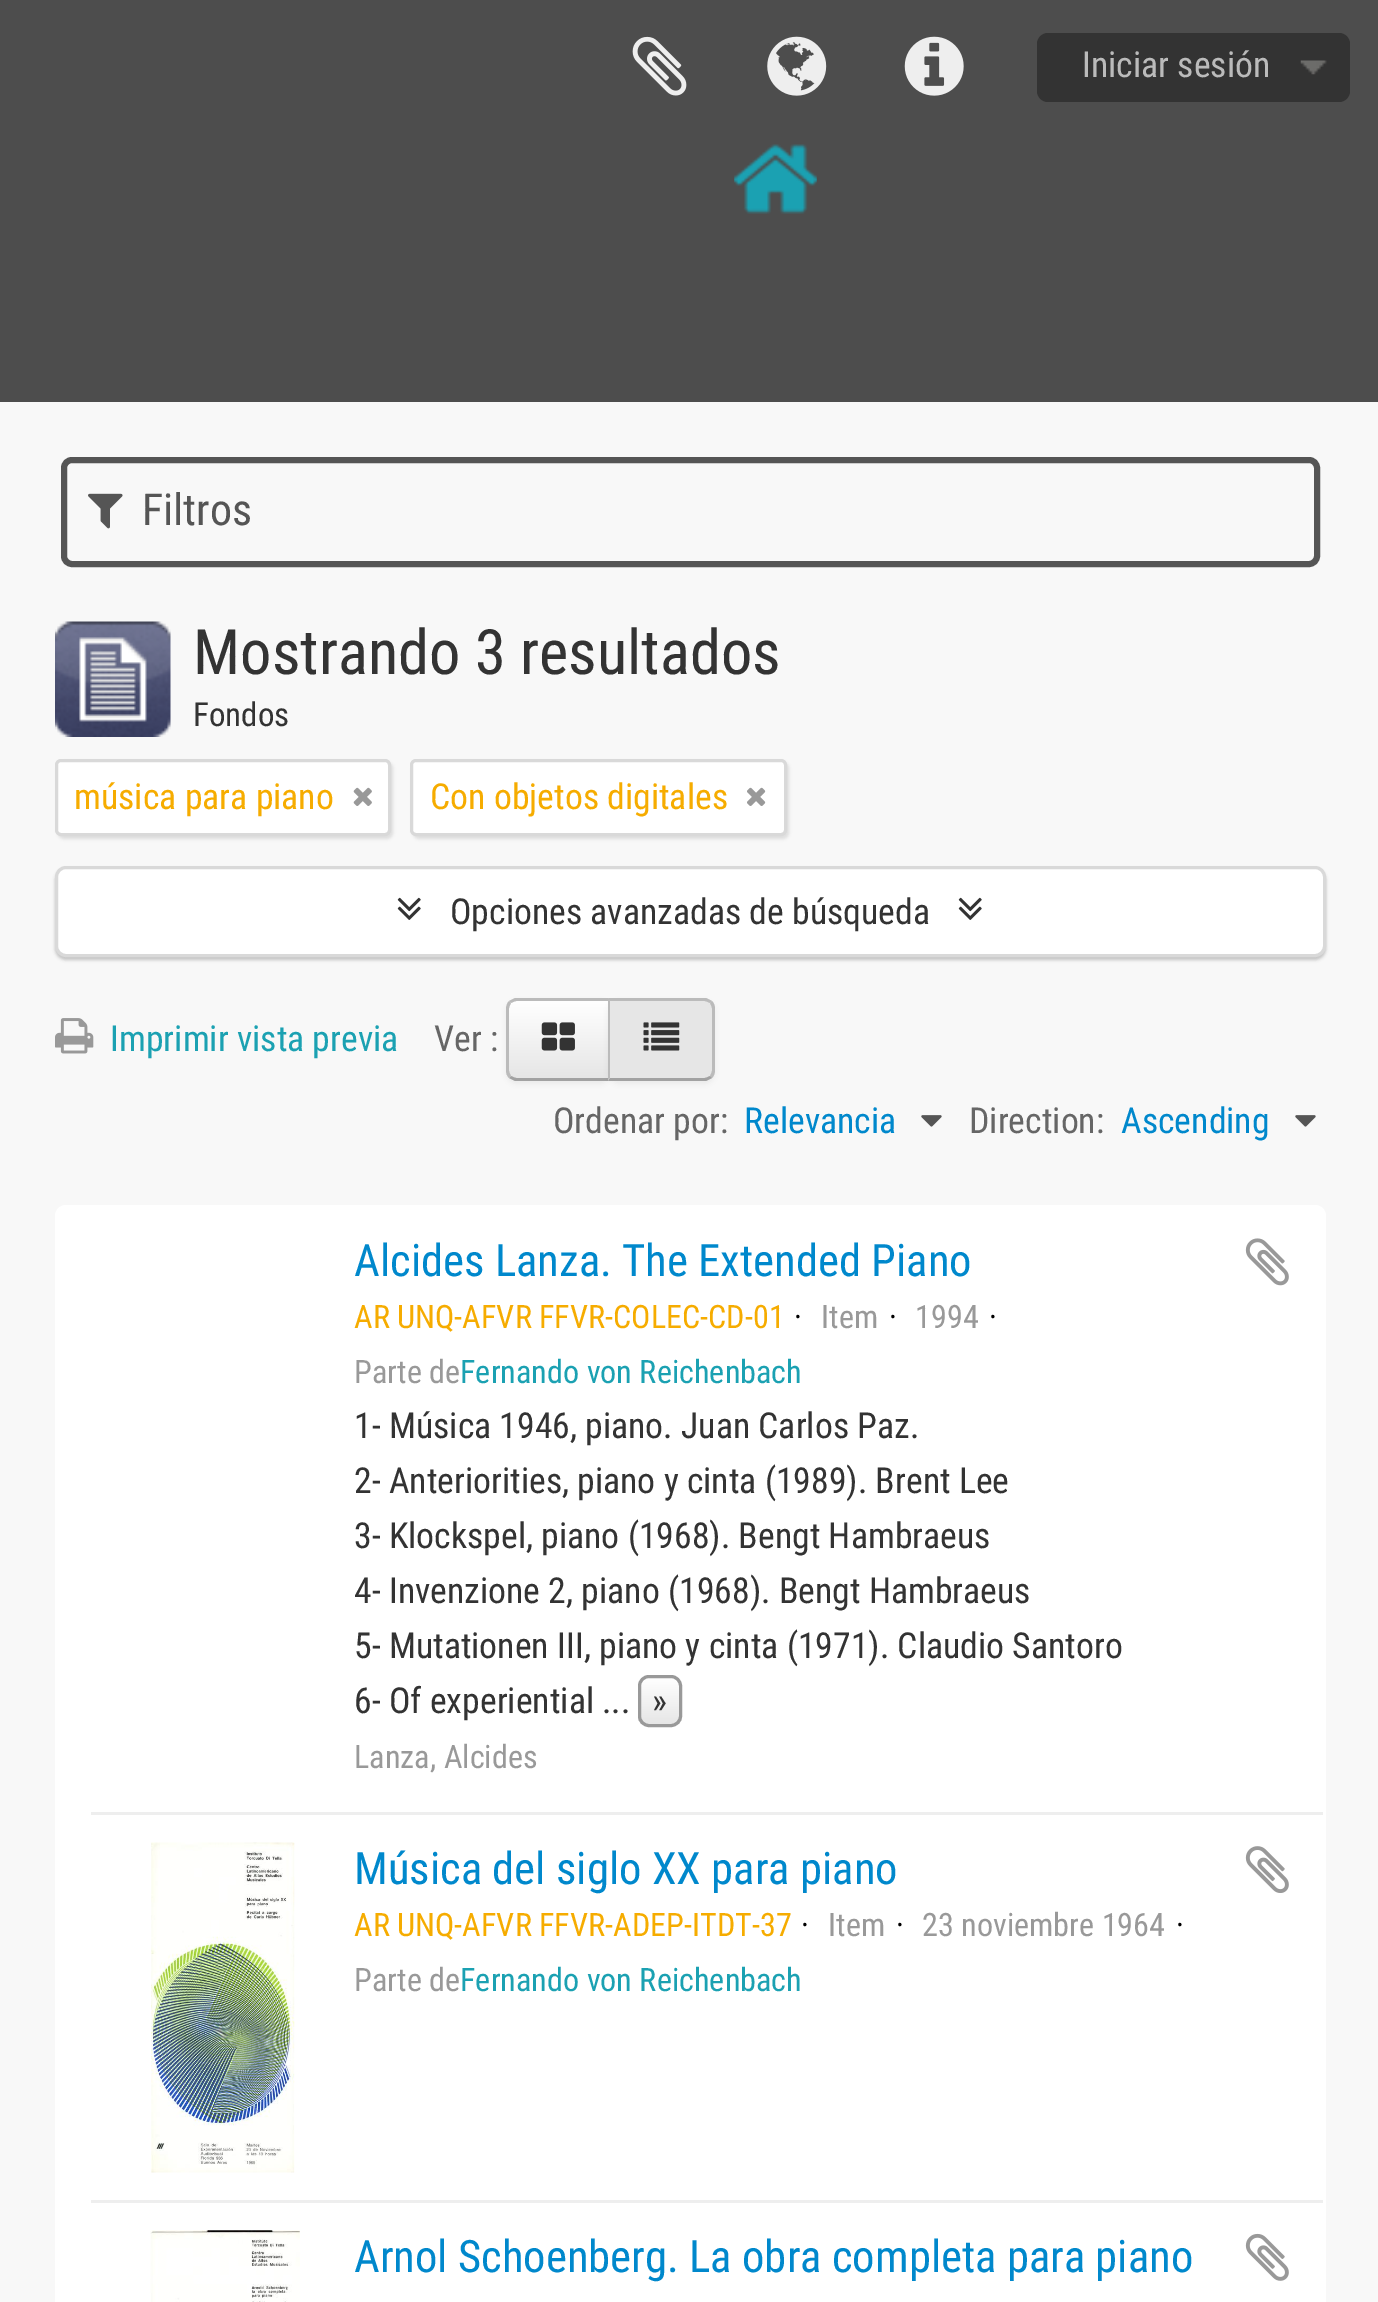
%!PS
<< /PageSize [1378 2302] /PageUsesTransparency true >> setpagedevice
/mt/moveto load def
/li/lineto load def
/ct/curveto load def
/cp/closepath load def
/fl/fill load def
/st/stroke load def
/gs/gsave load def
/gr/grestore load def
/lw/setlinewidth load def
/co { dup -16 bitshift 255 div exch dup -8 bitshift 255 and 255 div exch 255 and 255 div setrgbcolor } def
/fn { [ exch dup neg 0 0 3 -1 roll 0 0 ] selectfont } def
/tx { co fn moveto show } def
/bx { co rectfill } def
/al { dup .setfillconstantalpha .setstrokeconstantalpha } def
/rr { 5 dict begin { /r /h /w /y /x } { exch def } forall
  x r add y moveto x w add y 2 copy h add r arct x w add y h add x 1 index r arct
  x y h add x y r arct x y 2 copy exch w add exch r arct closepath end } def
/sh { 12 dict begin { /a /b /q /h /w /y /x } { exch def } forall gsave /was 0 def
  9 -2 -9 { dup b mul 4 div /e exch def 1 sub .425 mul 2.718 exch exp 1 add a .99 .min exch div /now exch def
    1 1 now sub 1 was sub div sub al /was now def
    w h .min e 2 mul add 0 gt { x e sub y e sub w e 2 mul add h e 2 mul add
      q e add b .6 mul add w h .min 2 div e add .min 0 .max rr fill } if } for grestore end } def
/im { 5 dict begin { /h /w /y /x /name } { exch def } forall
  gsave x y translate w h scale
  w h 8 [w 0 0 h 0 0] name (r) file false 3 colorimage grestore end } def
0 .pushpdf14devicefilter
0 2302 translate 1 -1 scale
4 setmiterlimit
0 0 1378 2302 16#F8F8F8 bx
0 0 1378 402 16#4D4D4D bx
(media/1.raw) 632 36 55 60 im
(media/2.raw) 767 36 60 60 im
(media/3.raw) 904 36 60 60 im
16#333333 co
1037 33 313 69 11 rr fl
(media/4.raw) 1300 60 27 15 im
(media/5.raw) 734 144 83 70 im
16#555555 co
6 lw
64 460 1253 104 8 rr st
(media/6.raw) 88 493 35 36 im
(media/7.raw) 55 621 116 116 im
16#000000 co
58 762 335 77 6 1.5 .1 sh
16#FFFFFF co
56.5 760.5 333 74 4.5 rr gs fl gr
16#D9D9D9 co
3 lw
st
(media/8.raw) 353 787 19 19 im
16#000000 co
413 762 376 77 6 1.5 .1 sh
16#FFFFFF co
411.5 760.5 374 74 4.5 rr gs fl gr
16#D9D9D9 co
st
(media/9.raw) 747 787 19 19 im
16#000000 co
55 869 1271 91 11 1.5 .2 sh
16#FFFFFF co
56.5 867.5 1268 88 9.5 rr gs fl gr
16#D9D9D9 co
st
(media/10.raw) 397 897 24 23 im
(media/10.raw) 958 897 24 23 im
(media/11.raw) 55 1018 39 36 im
16#000000 co
506 1001 105 83 11 3 .05 sh
16#F5F5F5 co
517 998 mt 611 998 li 611 1081 li 517 1081 li 511 1081 506 1076 506 1070 ct 506 1009 li 506 1003 511 998 517 998 ct cp fl
gs
517 998 mt 611 998 li 611 1081 li 517 1081 li 511 1081 506 1076 506 1070 ct 506 1009 li 506 1003 511 998 517 998 ct cp clip newpath
gs 506 1001 mt 608 1001 li 608 1078 li 506 1078 li cp clip newpath
<< /ShadingType 2 /ColorSpace /DeviceRGB /Coords [558 1001 558 1078] /Extend [true true] /Function << /FunctionType 2 /Domain [0 1] /C0 [1 1 1] /C1 [.902 .902 .902] /N 1 >> >> shfill gr
gr
16#BBBBBB co
517 1001 mt 515 1001 513 1002 511 1003 ct 509 1001 li 511 1000 513 999 515 998 ct 610 998 li 608 1001 li cp fl
16#A2A2A2 co
515 1081 mt 513 1080 511 1079 509 1078 ct 511 1076 li 513 1077 515 1078 517 1078 ct 608 1078 li 610 1081 li cp fl
16#BBBBBB co
506 1009 mt 506 1070 li 506 1073 507 1076 509 1078 ct 511 1076 li 510 1074 509 1072 509 1070 ct 509 1009 li 509 1007 510 1005 511 1003 ct 509 1001 li 507 1003 506 1006 506 1009 ct cp fl
(media/12.raw) 541 1022 34 29 im
16#000000 co
608 1001 107 83 11 3 .05 sh
16#E6E6E6 co
608 998 mt 704 998 li 710 998 715 1003 715 1009 ct 715 1070 li 715 1076 710 1081 704 1081 ct 608 1081 li cp fl
16#BBBBBB co
608 998 mt 706 998 li 708 999 710 1000 712 1001 ct 710 1003 li 708 1002 706 1001 704 1001 ct 610 1001 li cp fl
715 1070 mt 715 1009 li 715 1006 714 1003 712 1001 ct 710 1003 li 711 1005 712 1007 712 1009 ct 712 1070 li 712 1072 711 1074 710 1076 ct 712 1078 li 714 1076 715 1073 715 1070 ct cp fl
16#A2A2A2 co
608 1081 mt 610 1078 li 704 1078 li 706 1078 708 1077 710 1076 ct 712 1078 li 710 1079 708 1080 706 1081 ct cp fl
16#BBBBBB co
610 1001 mt 610 1078 li 608 1080 li 608 998 li cp fl
(media/13.raw) 643 1022 37 29 im
(media/14.raw) 921 1115 21 12 im
(media/14.raw) 1295 1115 21 12 im
16#FFFFFF co
55 1205 1271 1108 11 rr fl
91 1812 1232 3 16#EEEEEE bx
(media/15.raw) 1245 1238 44 48 im
gs
638 1675 44 52 11 rr clip newpath
gs 638 1678 mt 682 1678 li 682 1724 li 638 1724 li cp clip newpath
<< /ShadingType 2 /ColorSpace /DeviceRGB /Coords [660 1678 660 1724] /Extend [true true] /Function << /FunctionType 2 /Domain [0 1] /C0 [1 1 1] /C1 [.902 .902 .902] /N 1 >> >> shfill gr
gr
16#999999 co
639.5 1676.5 41 49 9.5 rr st
91 2200 1232 3 16#EEEEEE bx
(media/16.raw) 151 1842 144 331 im
(media/17.raw) 1245 1846 44 47 im
(media/18.raw) 150 2230 150 72 im
(media/19.raw) 1245 2233 44 48 im
(Iniciar sesión) 1082 77 /RobotoCondensed-Regular 35.75 16#BBBBBB tx
(Filtros) 142 525 /RobotoCondensed-Regular 44 16#555555 tx
(Mostrando 3 resultados) 193 674 /RobotoCondensed-Regular 62.5 16#333333 tx
(Fondos) 193 726 /RobotoCondensed-Regular 33 16#333333 tx
(música para piano) 74 809 /RobotoCondensed-Regular 35.75 16#F6AC00 tx
(Con objetos digitales) 430 809 /RobotoCondensed-Regular 35.75 16#F6AC00 tx
(Opciones avanzadas de búsqueda) 450 924 /RobotoCondensed-Regular 35.75 16#333333 tx
(Imprimir vista previa) 110 1051 /RobotoCondensed-Regular 35.75 16#1BA1B2 tx
(Ver :) 434 1051 /RobotoCondensed-Regular 35.75 16#666666 tx
(Ordenar por:) 553 1133 /RobotoCondensed-Regular 35.75 16#666666 tx
(Relevancia) 744 1133 /RobotoCondensed-Regular 35.75 16#0088CC tx
(Direction:) 969 1133 /RobotoCondensed-Regular 35.75 16#666666 tx
(Ascending) 1121 1133 /RobotoCondensed-Regular 35.75 16#0088CC tx
(Alcides Lanza. The Extended Piano) 354 1276 /RobotoCondensed-Regular 44.7 16#0088CC tx
(AR UNQ-AFVR FFVR-COLEC-CD-01) 354 1328 /RobotoCondensed-Regular 32.2 16#F6AC00 tx
(·) 794 1328 /RobotoCondensed-Regular 32.2 16#000000 tx
(Item) 821 1328 /RobotoCondensed-Regular 32.2 16#999999 tx
(·) 889 1328 /RobotoCondensed-Regular 32.2 16#000000 tx
(1994) 915 1328 /RobotoCondensed-Regular 32.2 16#999999 tx
(·) 989 1328 /RobotoCondensed-Regular 32.2 16#000000 tx
(Parte de) 354 1383 /RobotoCondensed-Regular 32.2 16#999999 tx
(Fernando von Reichenbach) 460 1383 /RobotoCondensed-Regular 32.2 16#1BA1B2 tx
(1- Música 1946, piano. Juan Carlos Paz.) 354 1438 /RobotoCondensed-Regular 35.75 16#333333 tx
(2- Anteriorities, piano y cinta \(1989\). Brent Lee) 354 1493 /RobotoCondensed-Regular 35.75 16#333333 tx
(3- Klockspel, piano \(1968\). Bengt Hambraeus) 354 1548 /RobotoCondensed-Regular 35.75 16#333333 tx
(4- Invenzione 2, piano \(1968\). Bengt Hambraeus) 354 1603 /RobotoCondensed-Regular 35.75 16#333333 tx
(5- Mutationen III, piano y cinta \(1971\). Claudio Santoro) 354 1658 /RobotoCondensed-Regular 35.75 16#333333 tx
(6- Of experiential ...) 354 1713 /RobotoCondensed-Regular 35.75 16#333333 tx
(») 652 1713 /RobotoCondensed-Regular 35.75 16#333333 tx
(Lanza, Alcides) 354 1768 /RobotoCondensed-Regular 32.2 16#999999 tx
(Música del siglo XX para piano) 354 1884 /RobotoCondensed-Regular 44.7 16#0088CC tx
(AR UNQ-AFVR FFVR-ADEP-ITDT-37) 354 1936 /RobotoCondensed-Regular 32.2 16#F6AC00 tx
(·) 801 1936 /RobotoCondensed-Regular 32.2 16#000000 tx
(Item) 828 1936 /RobotoCondensed-Regular 32.2 16#999999 tx
(·) 896 1936 /RobotoCondensed-Regular 32.2 16#000000 tx
(23 noviembre 1964) 922 1936 /RobotoCondensed-Regular 32.2 16#999999 tx
(·) 1176 1936 /RobotoCondensed-Regular 32.2 16#000000 tx
(Parte de) 354 1991 /RobotoCondensed-Regular 32.2 16#999999 tx
(Fernando von Reichenbach) 460 1991 /RobotoCondensed-Regular 32.2 16#1BA1B2 tx
(Arnol Schoenberg. La obra completa para piano) 354 2272 /RobotoCondensed-Regular 44.7 16#0088CC tx
.poppdf14devicefilter showpage
